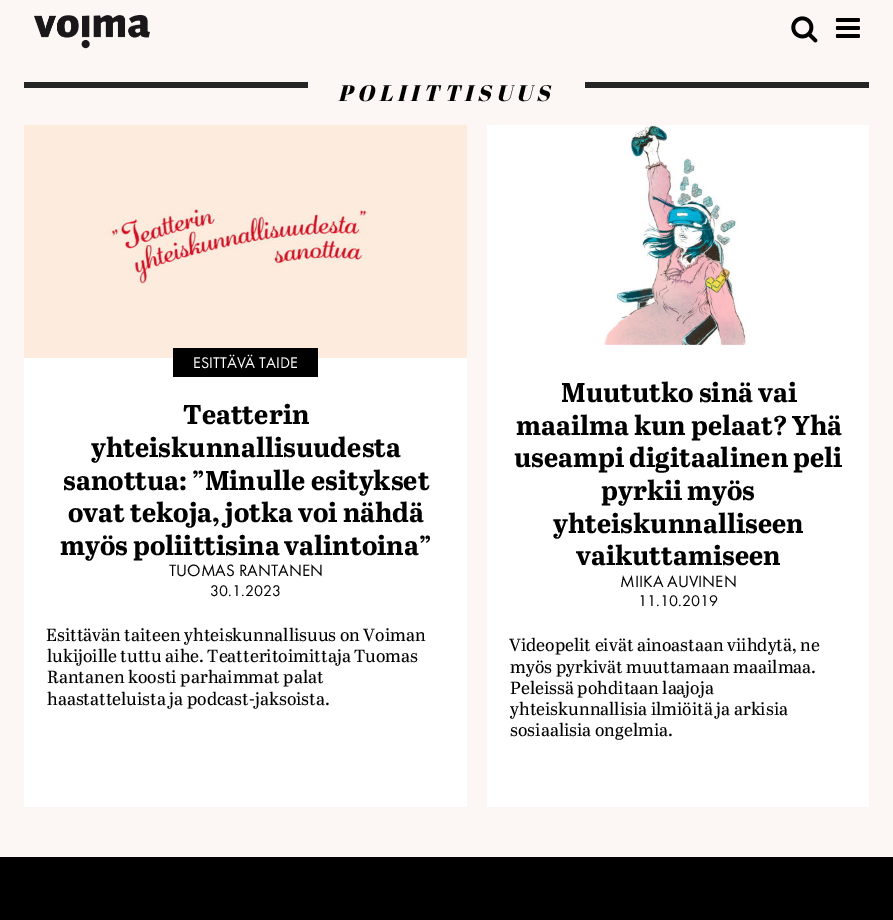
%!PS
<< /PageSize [893 920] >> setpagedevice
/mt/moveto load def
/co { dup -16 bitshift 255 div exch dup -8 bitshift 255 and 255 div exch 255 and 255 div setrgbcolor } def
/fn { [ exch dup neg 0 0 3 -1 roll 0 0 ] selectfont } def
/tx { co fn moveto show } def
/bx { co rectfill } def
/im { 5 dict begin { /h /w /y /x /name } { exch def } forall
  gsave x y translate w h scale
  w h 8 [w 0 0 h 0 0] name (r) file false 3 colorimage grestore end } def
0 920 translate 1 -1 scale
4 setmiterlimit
0 0 893 920 16#FCF7F4 bx
(media/1.raw) 34 14 116 35 im
(media/2.raw) 791 16 27 27 im
(media/3.raw) 835 18 25 20 im
24 82 284 6 16#252525 bx
585 82 284 6 16#252525 bx
(media/4.raw) 24 125 443 233 im
24 358 443 449 16#FFFFFF bx
173 348 145 29 16#000000 bx
(media/5.raw) 487 125 382 220 im
487 345 382 462 16#FFFFFF bx
0 857 893 63 16#000000 bx
/AbrilFatface-Italic 22.5 fn
338 101 mt 5 0 (POLIITTISUUS) ashow
(ESITTÄVÄ TAIDE) 193 368 /FuturaPT-Regular 16 16#FFFFFF tx
(Teatterin) 183 424 /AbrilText-Bold 27.25 16#000000 tx
(yhteiskunnallisuudesta) 91 457 /AbrilText-Bold 27.25 16#000000 tx
(sanottua: ”Minulle esitykset) 63 490 /AbrilText-Bold 27.25 16#000000 tx
(ovat tekoja, jotka voi nähdä) 68 522 /AbrilText-Bold 27.25 16#000000 tx
(myös poliittisina valintoina”) 60 555 /AbrilText-Bold 27.25 16#000000 tx
(TUOMAS RANTANEN) 169 576 /FuturaPT-Regular 17 16#000000 tx
(30.1.2023) 210 596 /FuturaPT-Regular 16 16#000000 tx
(Esittävän taiteen yhteiskunnallisuus on Voiman) 46 641 /AbrilText-Regular 17.6 16#000000 tx
(lukijoille tuttu aihe. Teatteritoimittaja Tuomas) 47 662 /AbrilText-Regular 17.6 16#000000 tx
(Rantanen koosti parhaimmat palat) 47 683 /AbrilText-Regular 17.6 16#000000 tx
(haastatteluista ja podcast-jaksoista.) 47 705 /AbrilText-Regular 17.6 16#000000 tx
(Muututko sinä vai) 561 402 /AbrilText-Bold 27.25 16#000000 tx
(maailma kun pelaat? Yhä) 516 435 /AbrilText-Bold 27.25 16#000000 tx
(useampi digitaalinen peli) 514 467 /AbrilText-Bold 27.25 16#000000 tx
(pyrkii myös) 601 500 /AbrilText-Bold 27.25 16#000000 tx
(yhteiskunnalliseen) 553 533 /AbrilText-Bold 27.25 16#000000 tx
(vaikuttamiseen) 576 565 /AbrilText-Bold 27.25 16#000000 tx
(MIIKA AUVINEN) 620 587 /FuturaPT-Regular 17 16#000000 tx
(11.10.2019) 638 606 /FuturaPT-Regular 16 16#000000 tx
(Videopelit eivät ainoastaan viihdytä, ne) 509 651 /AbrilText-Regular 17.6 16#000000 tx
(myös pyrkivät muuttamaan maailmaa.) 510 673 /AbrilText-Regular 17.6 16#000000 tx
(Peleissä pohditaan laajoja) 510 694 /AbrilText-Regular 17.6 16#000000 tx
(yhteiskunnallisia ilmiöitä ja arkisia) 510 715 /AbrilText-Regular 17.6 16#000000 tx
(sosiaalisia ongelmia.) 510 736 /AbrilText-Regular 17.6 16#000000 tx
showpage
